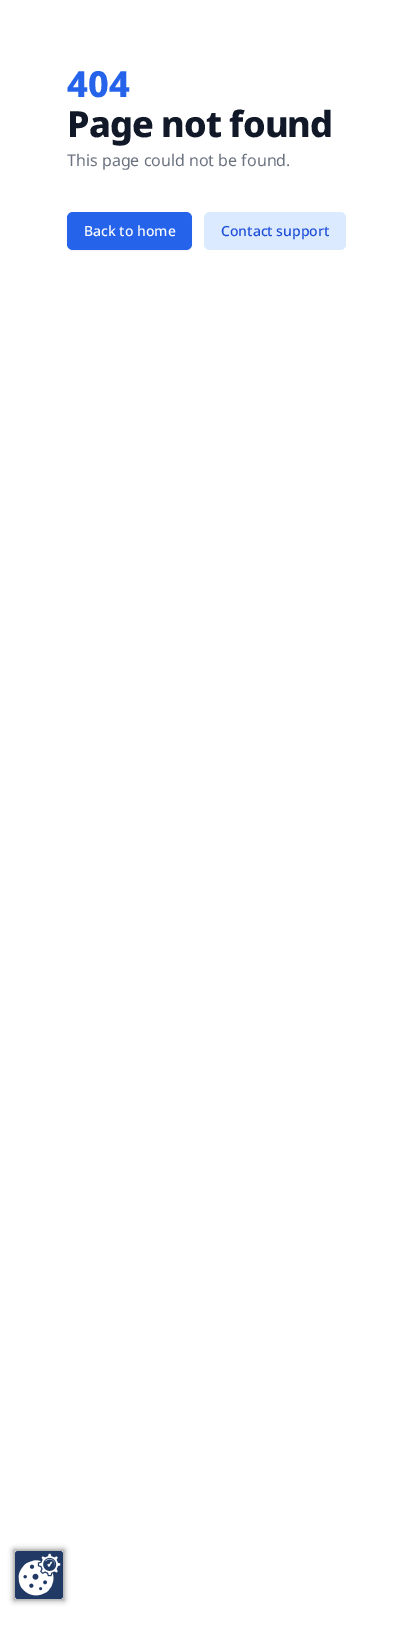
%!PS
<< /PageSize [413 1639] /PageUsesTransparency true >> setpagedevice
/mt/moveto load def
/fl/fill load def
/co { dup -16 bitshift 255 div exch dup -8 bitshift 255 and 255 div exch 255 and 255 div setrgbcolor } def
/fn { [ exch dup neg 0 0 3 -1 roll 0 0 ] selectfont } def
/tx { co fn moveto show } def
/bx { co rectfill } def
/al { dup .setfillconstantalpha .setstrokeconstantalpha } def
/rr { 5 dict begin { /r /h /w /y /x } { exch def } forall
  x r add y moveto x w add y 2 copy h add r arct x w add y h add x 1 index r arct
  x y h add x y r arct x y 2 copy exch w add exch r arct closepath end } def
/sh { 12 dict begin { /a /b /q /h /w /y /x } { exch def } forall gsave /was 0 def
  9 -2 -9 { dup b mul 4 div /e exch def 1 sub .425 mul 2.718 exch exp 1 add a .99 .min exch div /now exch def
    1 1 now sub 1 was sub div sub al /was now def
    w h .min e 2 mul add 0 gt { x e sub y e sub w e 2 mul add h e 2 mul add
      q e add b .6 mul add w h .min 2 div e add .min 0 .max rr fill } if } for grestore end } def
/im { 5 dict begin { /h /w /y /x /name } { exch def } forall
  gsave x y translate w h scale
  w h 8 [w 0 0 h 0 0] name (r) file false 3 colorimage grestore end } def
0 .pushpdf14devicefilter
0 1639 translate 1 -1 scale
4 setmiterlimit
0 0 413 1639 16#FFFFFF bx
16#000000 co
67 213 125 38 6 1 .05 sh
16#2563EB co
67 212 125 38 6 rr fl
16#DBEAFE co
204 212 142 38 6 rr fl
16#000000 co
14 1550 50 50 0 3 .5 sh
(media/1.raw) 15 1551 48 48 im
(404) 67 97 /NotoSans-ExtraBold 36 16#2563EB tx
16#111827 co
67 137 mt -.9 0 (Page not found) ashow
(This page could not be found.) 67 166 /NotoSans-Regular 16 16#6B7280 tx
(Back to home) 84 236 /NotoSans-Medium 14 16#FFFFFF tx
(Contact support) 221 236 /NotoSans-Medium 14 16#1D4ED8 tx
.poppdf14devicefilter showpage
